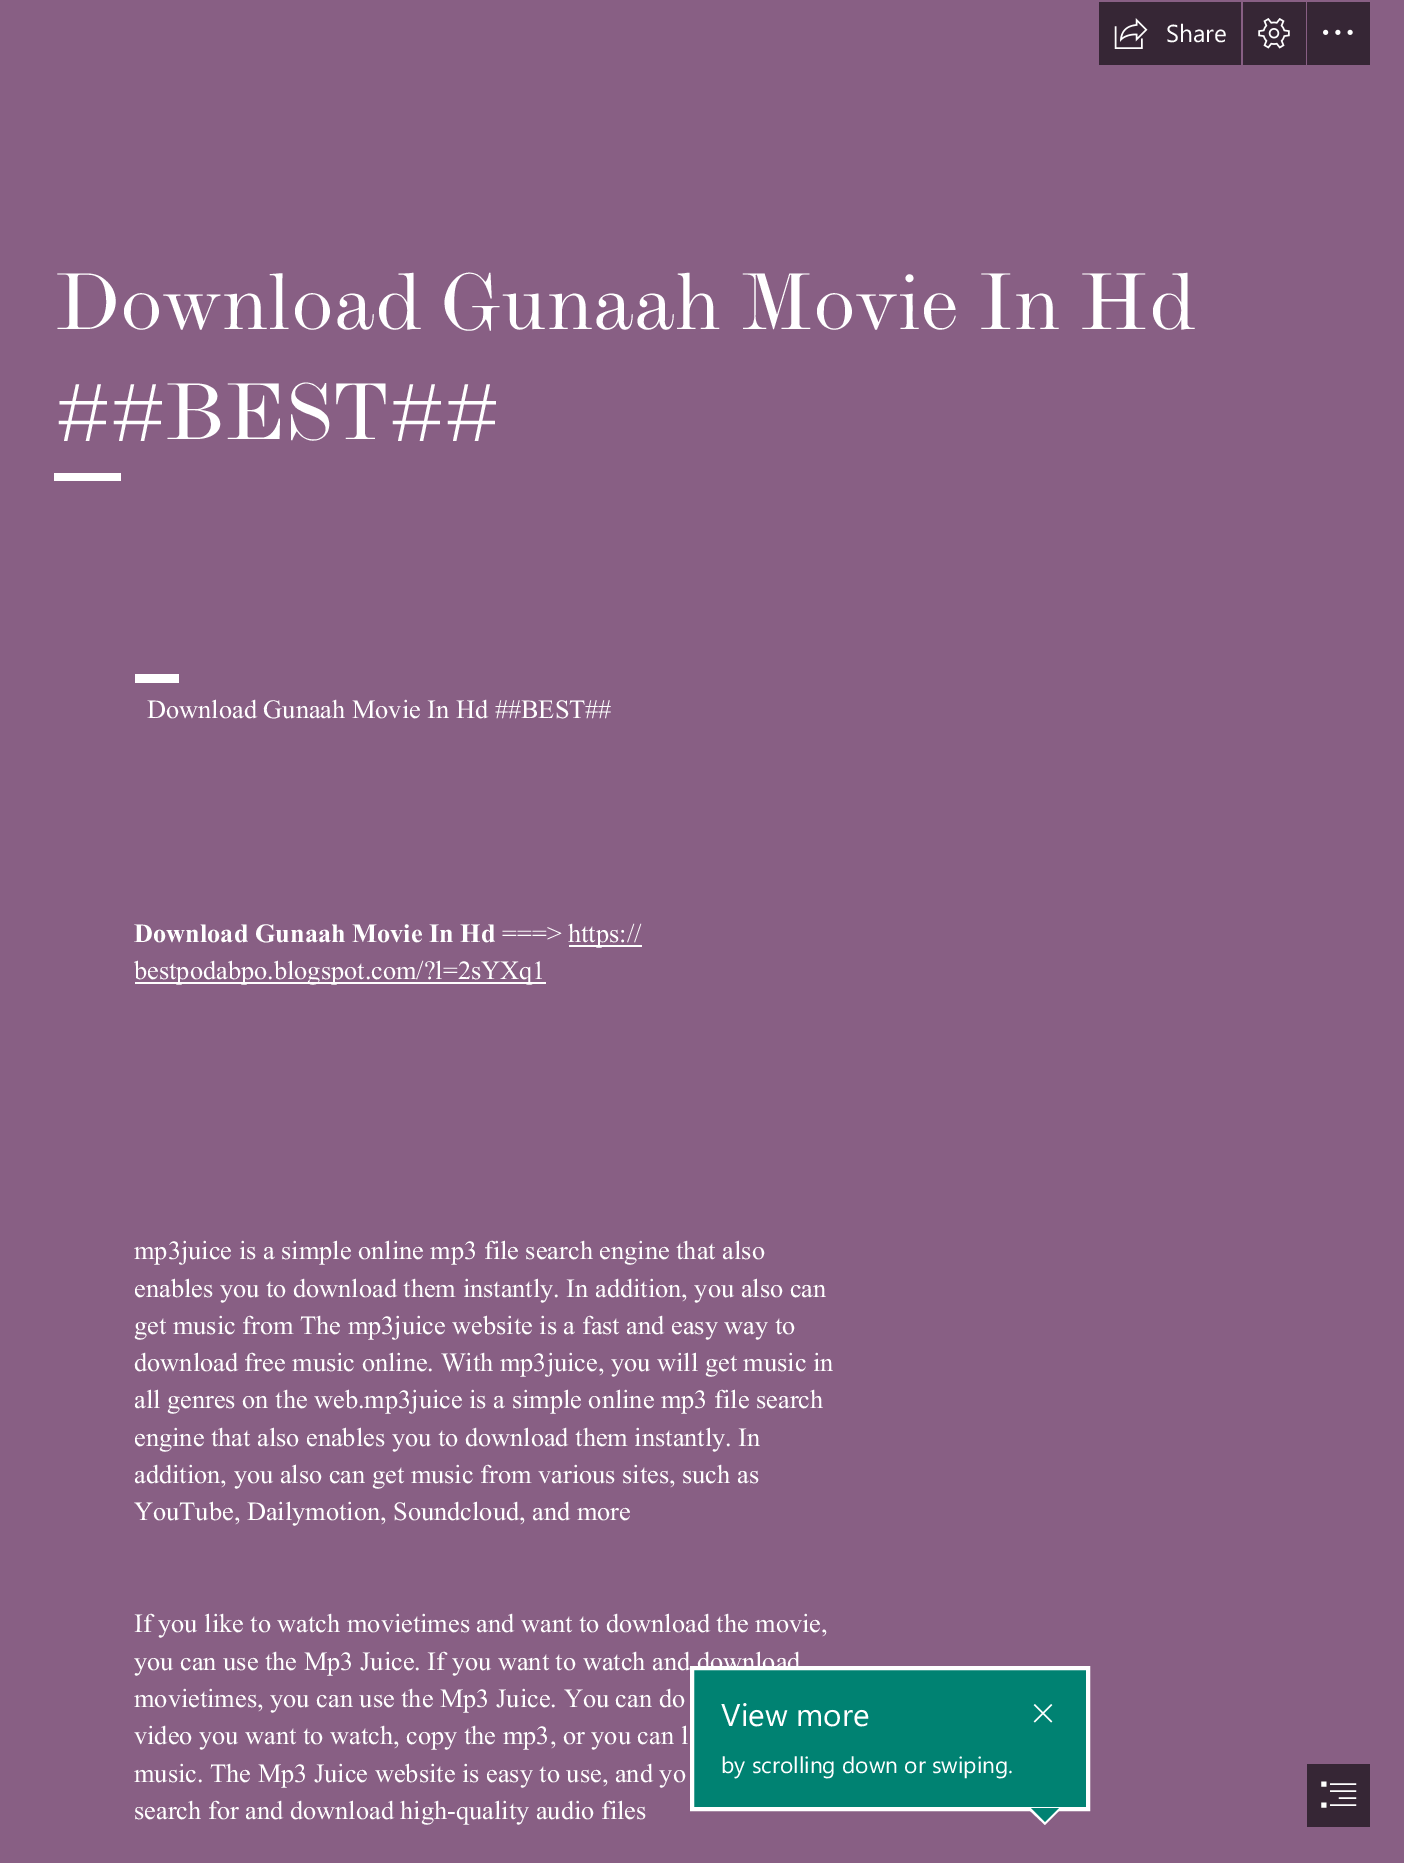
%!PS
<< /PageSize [1404 1863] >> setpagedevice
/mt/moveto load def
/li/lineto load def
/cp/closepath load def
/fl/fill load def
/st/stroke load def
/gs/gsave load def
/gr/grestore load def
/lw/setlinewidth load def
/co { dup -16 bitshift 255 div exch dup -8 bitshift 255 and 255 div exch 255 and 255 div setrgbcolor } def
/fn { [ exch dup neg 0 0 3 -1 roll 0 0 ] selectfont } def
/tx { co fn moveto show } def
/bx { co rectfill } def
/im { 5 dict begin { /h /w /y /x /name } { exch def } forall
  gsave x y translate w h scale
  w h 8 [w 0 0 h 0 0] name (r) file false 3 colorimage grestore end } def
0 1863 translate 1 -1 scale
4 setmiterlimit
0 0 1404 1863 16#885F84 bx
1099 2 142 63 16#362635 bx
(media/1.raw) 1114 18 34 31 im
1243 2 63 63 16#362635 bx
(media/2.raw) 1258 18 32 31 im
1307 2 63 63 16#362635 bx
(media/3.raw) 1323 29 30 6 im
54 473 67 8 16#FFFFFF bx
135 674 44 9 16#FFFFFF bx
569 945 73 2 16#FFFFFF bx
135 982 411 2 16#FFFFFF bx
1307 1764 63 63 16#362635 bx
(media/5.raw) 1321 1781 36 27 im
(Share) 1166 42 /SegoeUI-Regular 24.5 16#FFFFFF tx
(Download Gunaah Movie In Hd) 55 329 /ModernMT-Regular 82.3 16#FFFFFF tx
(##BEST##) 55 439 /ModernMT-Regular 82.3 16#FFFFFF tx
(Download Gunaah Movie In Hd ##BEST##) 147 718 /TimesNewRoman-Regular 26.35 16#FFFFFF tx
(Download Gunaah Movie In Hd) 134 942 /TimesNewRoman-Bold 26.35 16#FFFFFF tx
(===>) 502 942 /TimesNewRoman-Regular 26.35 16#FFFFFF tx
(https://) 568 942 /TimesNewRoman-Regular 26.35 16#FFFFFF tx
(bestpodabpo.blogspot.com/?l=2sYXq1) 134 979 /TimesNewRoman-Regular 26.35 16#FFFFFF tx
(mp3juice is a simple online mp3 file search engine that also) 134 1259 /TimesNewRoman-Regular 26.35 16#FFFFFF tx
(enables you to download them instantly. In addition, you also can) 134 1297 /TimesNewRoman-Regular 26.35 16#FFFFFF tx
(get music from The mp3juice website is a fast and easy way to) 134 1334 /TimesNewRoman-Regular 26.35 16#FFFFFF tx
(download free music online. With mp3juice, you will get music in) 134 1371 /TimesNewRoman-Regular 26.35 16#FFFFFF tx
(all genres on the web.mp3juice is a simple online mp3 file search) 134 1408 /TimesNewRoman-Regular 26.35 16#FFFFFF tx
(engine that also enables you to download them instantly. In) 134 1446 /TimesNewRoman-Regular 26.35 16#FFFFFF tx
(addition, you also can get music from various sites, such as) 134 1483 /TimesNewRoman-Regular 26.35 16#FFFFFF tx
(YouTube, Dailymotion, Soundcloud, and more) 134 1520 /TimesNewRoman-Regular 26.35 16#FFFFFF tx
(If you like to watch movietimes and want to download the movie,) 134 1632 /TimesNewRoman-Regular 26.35 16#FFFFFF tx
(you can use the Mp3 Juice. If you want to watch and download) 134 1670 /TimesNewRoman-Regular 26.35 16#FFFFFF tx
(movietimes, you can use the Mp3 Juice. You can do) 134 1707 /TimesNewRoman-Regular 26.35 16#FFFFFF tx
(video you want to watch, copy the mp3, or you can l) 134 1744 /TimesNewRoman-Regular 26.35 16#FFFFFF tx
(music. The Mp3 Juice website is easy to use, and yo) 134 1782 /TimesNewRoman-Regular 26.35 16#FFFFFF tx
(search for and download high-quality audio files) 134 1819 /TimesNewRoman-Regular 26.35 16#FFFFFF tx
16#008272 co
692 1668 mt 1088 1668 li 1088 1809 li 692 1809 li cp gs fl gr
16#FFFFFF co
4 lw
st
(View more) 721 1726 /SegoeUI-Regular 31.5 16#FFFFFF tx
(by scrolling down or swiping.) 721 1773 /SegoeUI-Regular 22.75 16#FFFFFF tx
(media/4.raw) 1033 1704 20 19 im
1027 1808 mt 1062 1808 li 1045 1825 li cp fl
16#008272 co
1031 1808 mt 1059 1808 li 1045 1822 li cp fl
showpage
